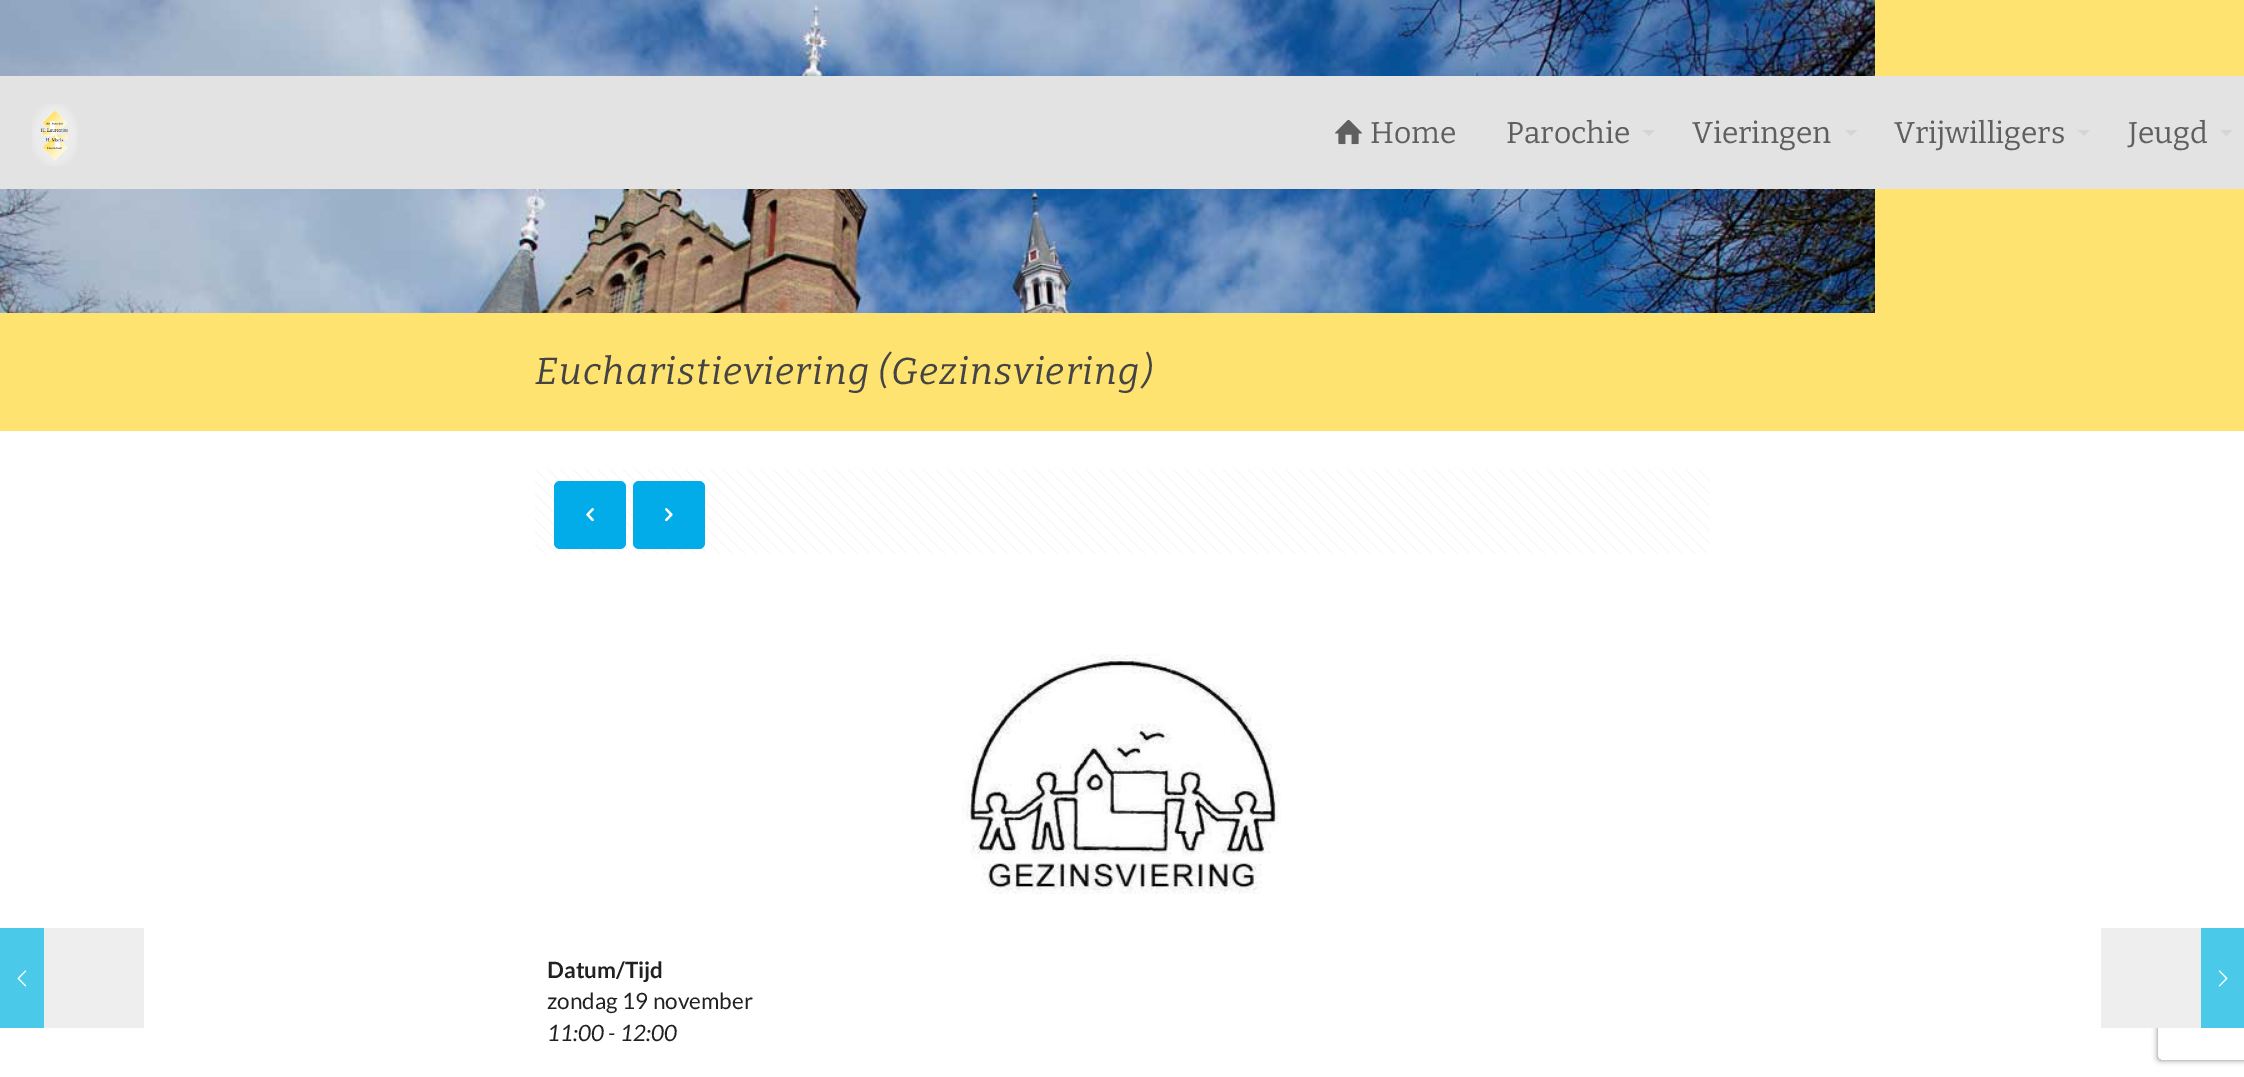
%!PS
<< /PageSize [2244 1077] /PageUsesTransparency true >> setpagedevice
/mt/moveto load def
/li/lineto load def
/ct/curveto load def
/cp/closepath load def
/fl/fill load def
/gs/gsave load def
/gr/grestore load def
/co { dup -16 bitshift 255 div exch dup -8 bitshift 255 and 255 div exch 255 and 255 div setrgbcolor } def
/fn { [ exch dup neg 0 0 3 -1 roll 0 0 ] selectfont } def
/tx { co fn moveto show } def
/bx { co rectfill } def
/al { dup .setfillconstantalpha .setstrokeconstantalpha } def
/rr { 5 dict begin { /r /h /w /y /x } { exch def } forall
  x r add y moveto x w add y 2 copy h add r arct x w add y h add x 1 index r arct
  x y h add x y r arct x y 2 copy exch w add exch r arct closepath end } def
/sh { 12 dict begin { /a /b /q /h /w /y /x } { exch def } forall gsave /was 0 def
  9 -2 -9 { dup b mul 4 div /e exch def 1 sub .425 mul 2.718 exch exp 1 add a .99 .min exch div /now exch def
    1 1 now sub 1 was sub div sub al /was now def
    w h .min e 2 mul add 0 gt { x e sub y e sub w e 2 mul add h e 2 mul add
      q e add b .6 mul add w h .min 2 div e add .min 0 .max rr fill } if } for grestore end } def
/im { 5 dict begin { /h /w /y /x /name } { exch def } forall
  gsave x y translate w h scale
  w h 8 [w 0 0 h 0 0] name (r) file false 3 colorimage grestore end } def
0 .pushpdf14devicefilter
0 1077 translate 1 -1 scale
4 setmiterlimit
0 0 2244 1077 16#FFE370 bx
0 431 2244 646 16#FFFFFF bx
0 928 44 100 16#4BC9E8 bx
(media/1.raw) 17 970 10 17 im
44 928 100 100 16#EEEEEE bx
(media/2.raw) 0 0 1875 313 im
0 76 2244 113 16#E3E3E3 bx
(media/3.raw) 32 104 46 62 im
(media/4.raw) 1335 119 27 26 im
16#D5D5D5 co
1642.5 130 mt 1655 130 li 1649 136 li cp fl
1845 130 mt 1857.5 130 li 1851 136 li cp fl
2077.5 130 mt 2090 130 li 2084 136 li cp fl
2220 130 mt 2232.5 130 li 2226 136 li cp fl
(media/5.raw) 535 469 1175 85 im
16#02ACE9 co
554 481 72 68 6 rr fl
(media/6.raw) 586 508 8 14 im
633 481 72 68 6 rr fl
(media/7.raw) 665 508 8 14 im
(media/8.raw) 962 654 319 240 im
gs
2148 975 mt 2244 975 li 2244 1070 li 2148 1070 li cp 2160.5 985 mt 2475.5 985 li 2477 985 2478 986 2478 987.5 ct 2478 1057.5 li 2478 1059 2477 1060 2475.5 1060 ct 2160.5 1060 li 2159 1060 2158 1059 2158 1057.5 ct 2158 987.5 li 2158 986 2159 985 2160.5 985 ct cp eoclip newpath
16#808080 co
2158 985 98 75 2.5 3 1 sh
gr
2101 928 100 100 16#EEEEEE bx
2201 928 43 100 16#4BC9E8 bx
(media/9.raw) 2218 970 10 17 im
(Home) 1370 143 /Bitter-Regular 30 16#5F5F5F tx
(Parochie) 1506 143 /Bitter-Regular 30 16#5F5F5F tx
(Vieringen) 1692 143 /Bitter-Regular 30 16#5F5F5F tx
(Vrijwilligers) 1894 143 /Bitter-Regular 30 16#5F5F5F tx
(Jeugd) 2128 143 /Bitter-Regular 30 16#5F5F5F tx
/Bitter-ThinItalic 37.5 fn
16#444444 co
535 384 mt 1.25 0 (Eucharistieviering \(Gezinsviering\)) ashow
(Datum/Tijd) 547 978 /Lato-Bold 22.5 16#212121 tx
(zondag 19 november) 547 1009 /Lato-Regular 22.5 16#212121 tx
(11:00 - 12:00) 547 1041 /Lato-Italic 22.5 16#212121 tx
.poppdf14devicefilter showpage
